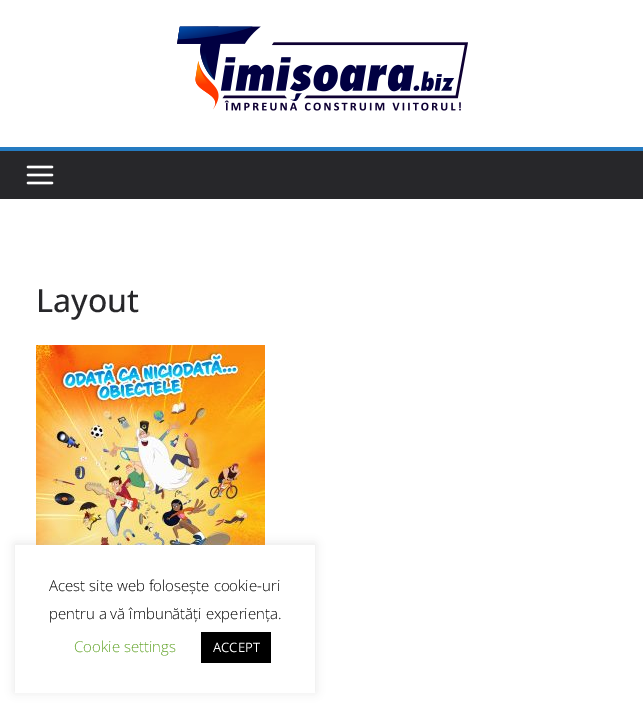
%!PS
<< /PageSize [643 708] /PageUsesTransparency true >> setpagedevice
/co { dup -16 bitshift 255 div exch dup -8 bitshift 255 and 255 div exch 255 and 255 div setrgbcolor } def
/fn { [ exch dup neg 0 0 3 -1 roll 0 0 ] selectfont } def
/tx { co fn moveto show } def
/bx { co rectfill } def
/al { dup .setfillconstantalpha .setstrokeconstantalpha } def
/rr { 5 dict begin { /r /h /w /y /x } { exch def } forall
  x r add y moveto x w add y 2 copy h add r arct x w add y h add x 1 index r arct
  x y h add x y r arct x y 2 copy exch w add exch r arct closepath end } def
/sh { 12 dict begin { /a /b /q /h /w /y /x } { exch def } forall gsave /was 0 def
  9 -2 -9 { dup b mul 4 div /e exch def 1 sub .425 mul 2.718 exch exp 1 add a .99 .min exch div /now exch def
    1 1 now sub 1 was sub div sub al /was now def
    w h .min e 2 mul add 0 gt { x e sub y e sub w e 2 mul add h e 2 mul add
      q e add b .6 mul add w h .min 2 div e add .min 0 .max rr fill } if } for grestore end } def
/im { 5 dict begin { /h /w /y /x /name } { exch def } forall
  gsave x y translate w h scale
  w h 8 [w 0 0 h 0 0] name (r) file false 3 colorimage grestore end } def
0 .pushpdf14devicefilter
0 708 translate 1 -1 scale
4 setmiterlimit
0 0 643 708 16#FFFFFF bx
(media/1.raw) 177 26 291 85 im
0 151 643 48 16#27272A bx
0 147 643 4 16#257BC1 bx
(media/2.raw) 26 165 28 20 im
(media/3.raw) 36 345 229 200 im
16#ACABAB co
15 544 300 148 0 5 .3 sh
15 545 300 148 16#FFFFFF bx
201 632 70 31 16#000000 bx
(Layout) 36 312 /OpenSans-Medium 32 16#27272A tx
(Acest site web folosește cookie-uri) 49 591 /OpenSans-Light 15 16#000000 tx
(pentru a vă îmbunătăți experiența.) 49 619 /OpenSans-Light 15 16#000000 tx
(Cookie settings) 74 652 /OpenSans-Light 15 16#62A329 tx
(ACCEPT) 213 652 /OpenSans-Regular 13 16#FFFFFF tx
.poppdf14devicefilter showpage
